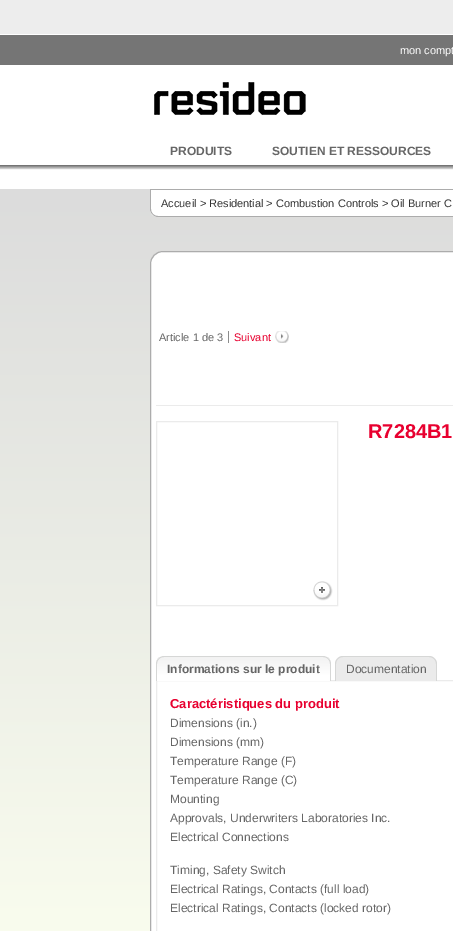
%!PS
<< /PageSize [453 931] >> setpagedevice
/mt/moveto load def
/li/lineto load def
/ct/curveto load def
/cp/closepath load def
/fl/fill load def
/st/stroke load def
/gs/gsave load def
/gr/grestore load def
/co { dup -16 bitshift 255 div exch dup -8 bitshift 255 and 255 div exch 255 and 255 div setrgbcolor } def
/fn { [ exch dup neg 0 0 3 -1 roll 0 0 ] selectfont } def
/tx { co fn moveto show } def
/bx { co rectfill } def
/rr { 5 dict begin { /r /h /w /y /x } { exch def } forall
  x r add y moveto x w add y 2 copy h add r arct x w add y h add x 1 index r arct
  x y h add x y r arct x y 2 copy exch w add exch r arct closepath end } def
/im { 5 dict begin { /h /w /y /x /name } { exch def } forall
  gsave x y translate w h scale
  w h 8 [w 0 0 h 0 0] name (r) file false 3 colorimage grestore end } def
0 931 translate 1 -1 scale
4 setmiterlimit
0 0 453 931 16#FFFFFF bx
0 0 453 34 16#EDEDED bx
0 35 453 30 16#757575 bx
(media/1.raw) 154 82 152 33 im
gs 0 165 mt 453 165 li 453 170 li 0 170 li cp clip newpath
<< /ShadingType 2 /ColorSpace /DeviceRGB /Coords [0 165 0 170] /Extend [true true] /Function << /FunctionType 2 /Domain [0 1] /C0 [.4 .4 .4] /C1 [.961 .961 .961] /N 1 >> >> shfill gr
gs 0 189 mt 453 189 li 453 931 li 0 931 li cp clip newpath
<< /ShadingType 2 /ColorSpace /DeviceRGB /Coords [0 189 0 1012] /Extend [true true] /Function << /FunctionType 2 /Domain [0 1] /C0 [.863 .863 .863] /C1 [.988 1 .941] /N 1 >> >> shfill gr
16#FFFFFF co
150 189 mt 196 189 li 196 217 li 158 217 li 153.5 217 150 213.5 150 209 ct cp fl
16#ACACAC co
150 189 mt 196 189 li 196 217 li 158 217 li 154 217 150 213 150 209 ct cp 151 190 mt 196 190 li 196 216 li 158 216 li 154 216 151 213 151 209 ct cp eofill
196 190 257 26 16#FFFFFF bx
196 189 257 1 16#ACACAC bx
196 216 257 1 16#ACACAC bx
16#FFFFFF co
150.5 251.5 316 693 12.5 rr gs fl gr
16#ACACAC co
st
156 405 297 1 16#EBEBEB bx
228 331 1 12 16#8C8C8C bx
(media/2.raw) 275 331 14 12 im
16#EBEBEB co
156.5 421.5 181 184 rectstroke
(media/3.raw) 313 581 20 20 im
156.5 680.5 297 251 rectstroke
gs
164 656 mt 323 656 li 327.5 656 331 659.5 331 664 ct 331 681 li 156 681 li 156 664 li 156 659.5 159.5 656 164 656 ct cp clip newpath
gs 156 657 mt 331 657 li 331 681 li 156 681 li cp clip newpath
<< /ShadingType 2 /ColorSpace /DeviceRGB /Coords [157 657 157 681] /Extend [true true] /Function << /FunctionType 3 /Domain [0 1] /Functions [<< /FunctionType 2 /Domain [0 1] /C0 [.949 .949 .949] /C1 [.949 .949 .949] /N 1 >> << /FunctionType 2 /Domain [0 1] /C0 [.949 .949 .949] /C1 [1 1 1] /N 1 >> << /FunctionType 2 /Domain [0 1] /C0 [1 1 1] /C1 [1 1 1] /N 1 >>] /Bounds [.01 .76] /Encode [0 1 0 1 0 1] >> >> shfill gr
gr
16#D6D7D6 co
164 656 mt 323 656 li 327 656 331 660 331 664 ct 331 681 li 156 681 li 156 664 li 156 660 160 656 164 656 ct cp 164 657 mt 323 657 li 327 657 330 660 330 664 ct 330 681 li 157 681 li 157 664 li 157 660 160 657 164 657 ct cp eofill
16#EBEBEB co
343 656 mt 429 656 li 433.5 656 437 659.5 437 664 ct 437 681 li 335 681 li 335 664 li 335 659.5 338.5 656 343 656 ct cp fl
16#D6D7D6 co
343 656 mt 429 656 li 433 656 437 660 437 664 ct 437 681 li 335 681 li 335 664 li 335 660 339 656 343 656 ct cp 343 657 mt 429 657 li 433 657 436 660 436 664 ct 436 681 li 336 681 li 336 664 li 336 660 339 657 343 657 ct cp eofill
(mon compt) 400 54 /LiberationSans-Regular 11 16#FFFFFF tx
(PRODUITS) 170 155 /LiberationSans-Bold 12 16#666666 tx
(SOUTIEN ET RESSOURCES) 272 155 /LiberationSans-Bold 12 16#666666 tx
(Accueil > Residential > Combustion Controls > Oil Burner C) 161 207 /LiberationSans-Regular 11 16#333333 tx
(Article 1 de 3) 159 341 /LiberationSans-Regular 11 16#666666 tx
(Suivant) 234 341 /LiberationSans-Regular 11 16#E8002F tx
(R7284B1) 368 438 /LiberationSans-Bold 20 16#E8002F tx
(Informations sur le produit) 167 673 /LiberationSans-Bold 12 16#666666 tx
(Documentation) 346 673 /LiberationSans-Regular 12 16#666666 tx
(Caractéristiques du produit) 170 708 /LiberationSans-Bold 13 16#E8002F tx
(Dimensions \(in.\)) 170 727 /LiberationSans-Regular 12 16#666666 tx
(Dimensions \(mm\)) 170 746 /LiberationSans-Regular 12 16#666666 tx
(Temperature Range \(F\)) 170 765 /LiberationSans-Regular 12 16#666666 tx
(Temperature Range \(C\)) 170 784 /LiberationSans-Regular 12 16#666666 tx
(Mounting) 170 803 /LiberationSans-Regular 12 16#666666 tx
(Approvals, Underwriters Laboratories Inc.) 170 822 /LiberationSans-Regular 12 16#666666 tx
(Electrical Connections) 170 841 /LiberationSans-Regular 12 16#666666 tx
(Timing, Safety Switch) 170 874 /LiberationSans-Regular 12 16#666666 tx
(Electrical Ratings, Contacts \(full load\)) 170 893 /LiberationSans-Regular 12 16#666666 tx
(Electrical Ratings, Contacts \(locked rotor\)) 170 912 /LiberationSans-Regular 12 16#666666 tx
showpage
